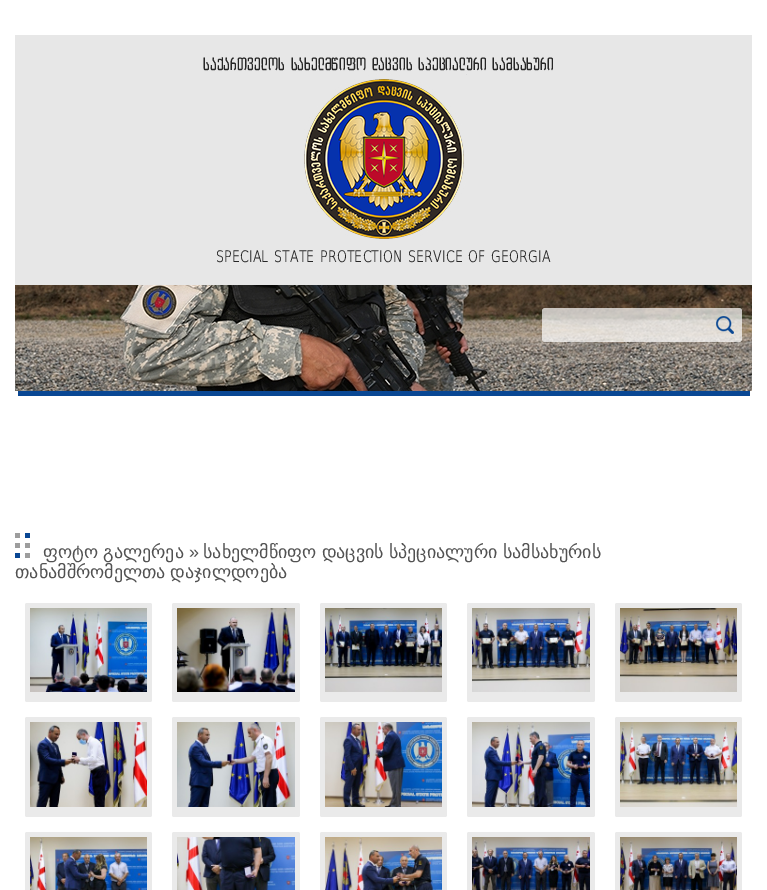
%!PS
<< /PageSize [767 890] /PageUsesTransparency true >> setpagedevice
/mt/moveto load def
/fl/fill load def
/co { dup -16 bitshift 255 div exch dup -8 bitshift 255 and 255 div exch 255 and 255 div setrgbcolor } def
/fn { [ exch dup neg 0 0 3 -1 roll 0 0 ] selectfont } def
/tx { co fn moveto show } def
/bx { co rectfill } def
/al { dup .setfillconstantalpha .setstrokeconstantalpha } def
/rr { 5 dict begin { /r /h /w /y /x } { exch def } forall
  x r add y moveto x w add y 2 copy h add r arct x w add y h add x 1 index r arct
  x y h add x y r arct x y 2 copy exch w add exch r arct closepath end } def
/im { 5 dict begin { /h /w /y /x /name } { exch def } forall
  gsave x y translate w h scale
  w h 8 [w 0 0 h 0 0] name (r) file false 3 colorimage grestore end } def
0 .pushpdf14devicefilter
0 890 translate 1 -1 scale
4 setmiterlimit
0 0 767 890 16#FFFFFF bx
15 35 737 250 16#E7E7E7 bx
(media/1.raw) 304 74 163 165 im
(media/2.raw) 15 285 737 106 im
18 391 732 5 16#094793 bx
0.7 al
16#FFFFFF co
542 308 200 34 3 rr fl
1 al
(media/3.raw) 716 316 18 18 im
(media/4.raw) 15 533 15 25 im
16#EAEAEA co
25 603 127 99 2 rr fl
(media/5.raw) 30 608 117 84 im
172 603 128 99 2 rr fl
(media/6.raw) 177 608 118 84 im
320 603 127 99 2 rr fl
(media/7.raw) 325 608 117 84 im
467 603 128 99 2 rr fl
(media/8.raw) 472 608 118 84 im
615 603 127 99 2 rr fl
(media/9.raw) 620 608 117 84 im
25 717 127 100 2 rr fl
(media/10.raw) 30 722 117 85 im
172 717 128 100 2 rr fl
(media/11.raw) 177 722 118 85 im
320 717 127 100 2 rr fl
(media/12.raw) 325 722 117 85 im
467 717 128 100 2 rr fl
(media/13.raw) 472 722 118 85 im
615 717 127 100 2 rr fl
(media/14.raw) 620 722 117 85 im
25 832 127 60 2 rr fl
(media/15.raw) 30 837 117 53 im
172 832 128 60 2 rr fl
(media/16.raw) 177 837 118 53 im
320 832 127 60 2 rr fl
(media/17.raw) 325 837 117 53 im
467 832 128 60 2 rr fl
(media/18.raw) 472 837 118 53 im
615 832 127 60 2 rr fl
(media/19.raw) 620 837 117 53 im
(საქართველოს სახელმწიფო დაცვის სპეციალური სამსახური) 203 70 /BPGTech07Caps-Regular 17 16#262626 tx
(SPECIAL STATE PROTECTION SERVICE OF GEORGIA) 216 262 /BPGTech07Caps-Regular 16 16#262626 tx
/DejaVuSans-Regular 18 fn
16#525252 co
43 558 mt -.5 0 32 (ფოტო გალერეა) widthshow
(») 189 558 /LiberationSans-Regular 18 16#525252 tx
/DejaVuSans-Regular 18 fn
203 558 mt -.5 0 32 (სახელმწიფო დაცვის სპეციალური სამსახურის) widthshow
15 578 mt -1 0 32 (თანამშრომელთა დაჯილდოება) widthshow
.poppdf14devicefilter showpage
